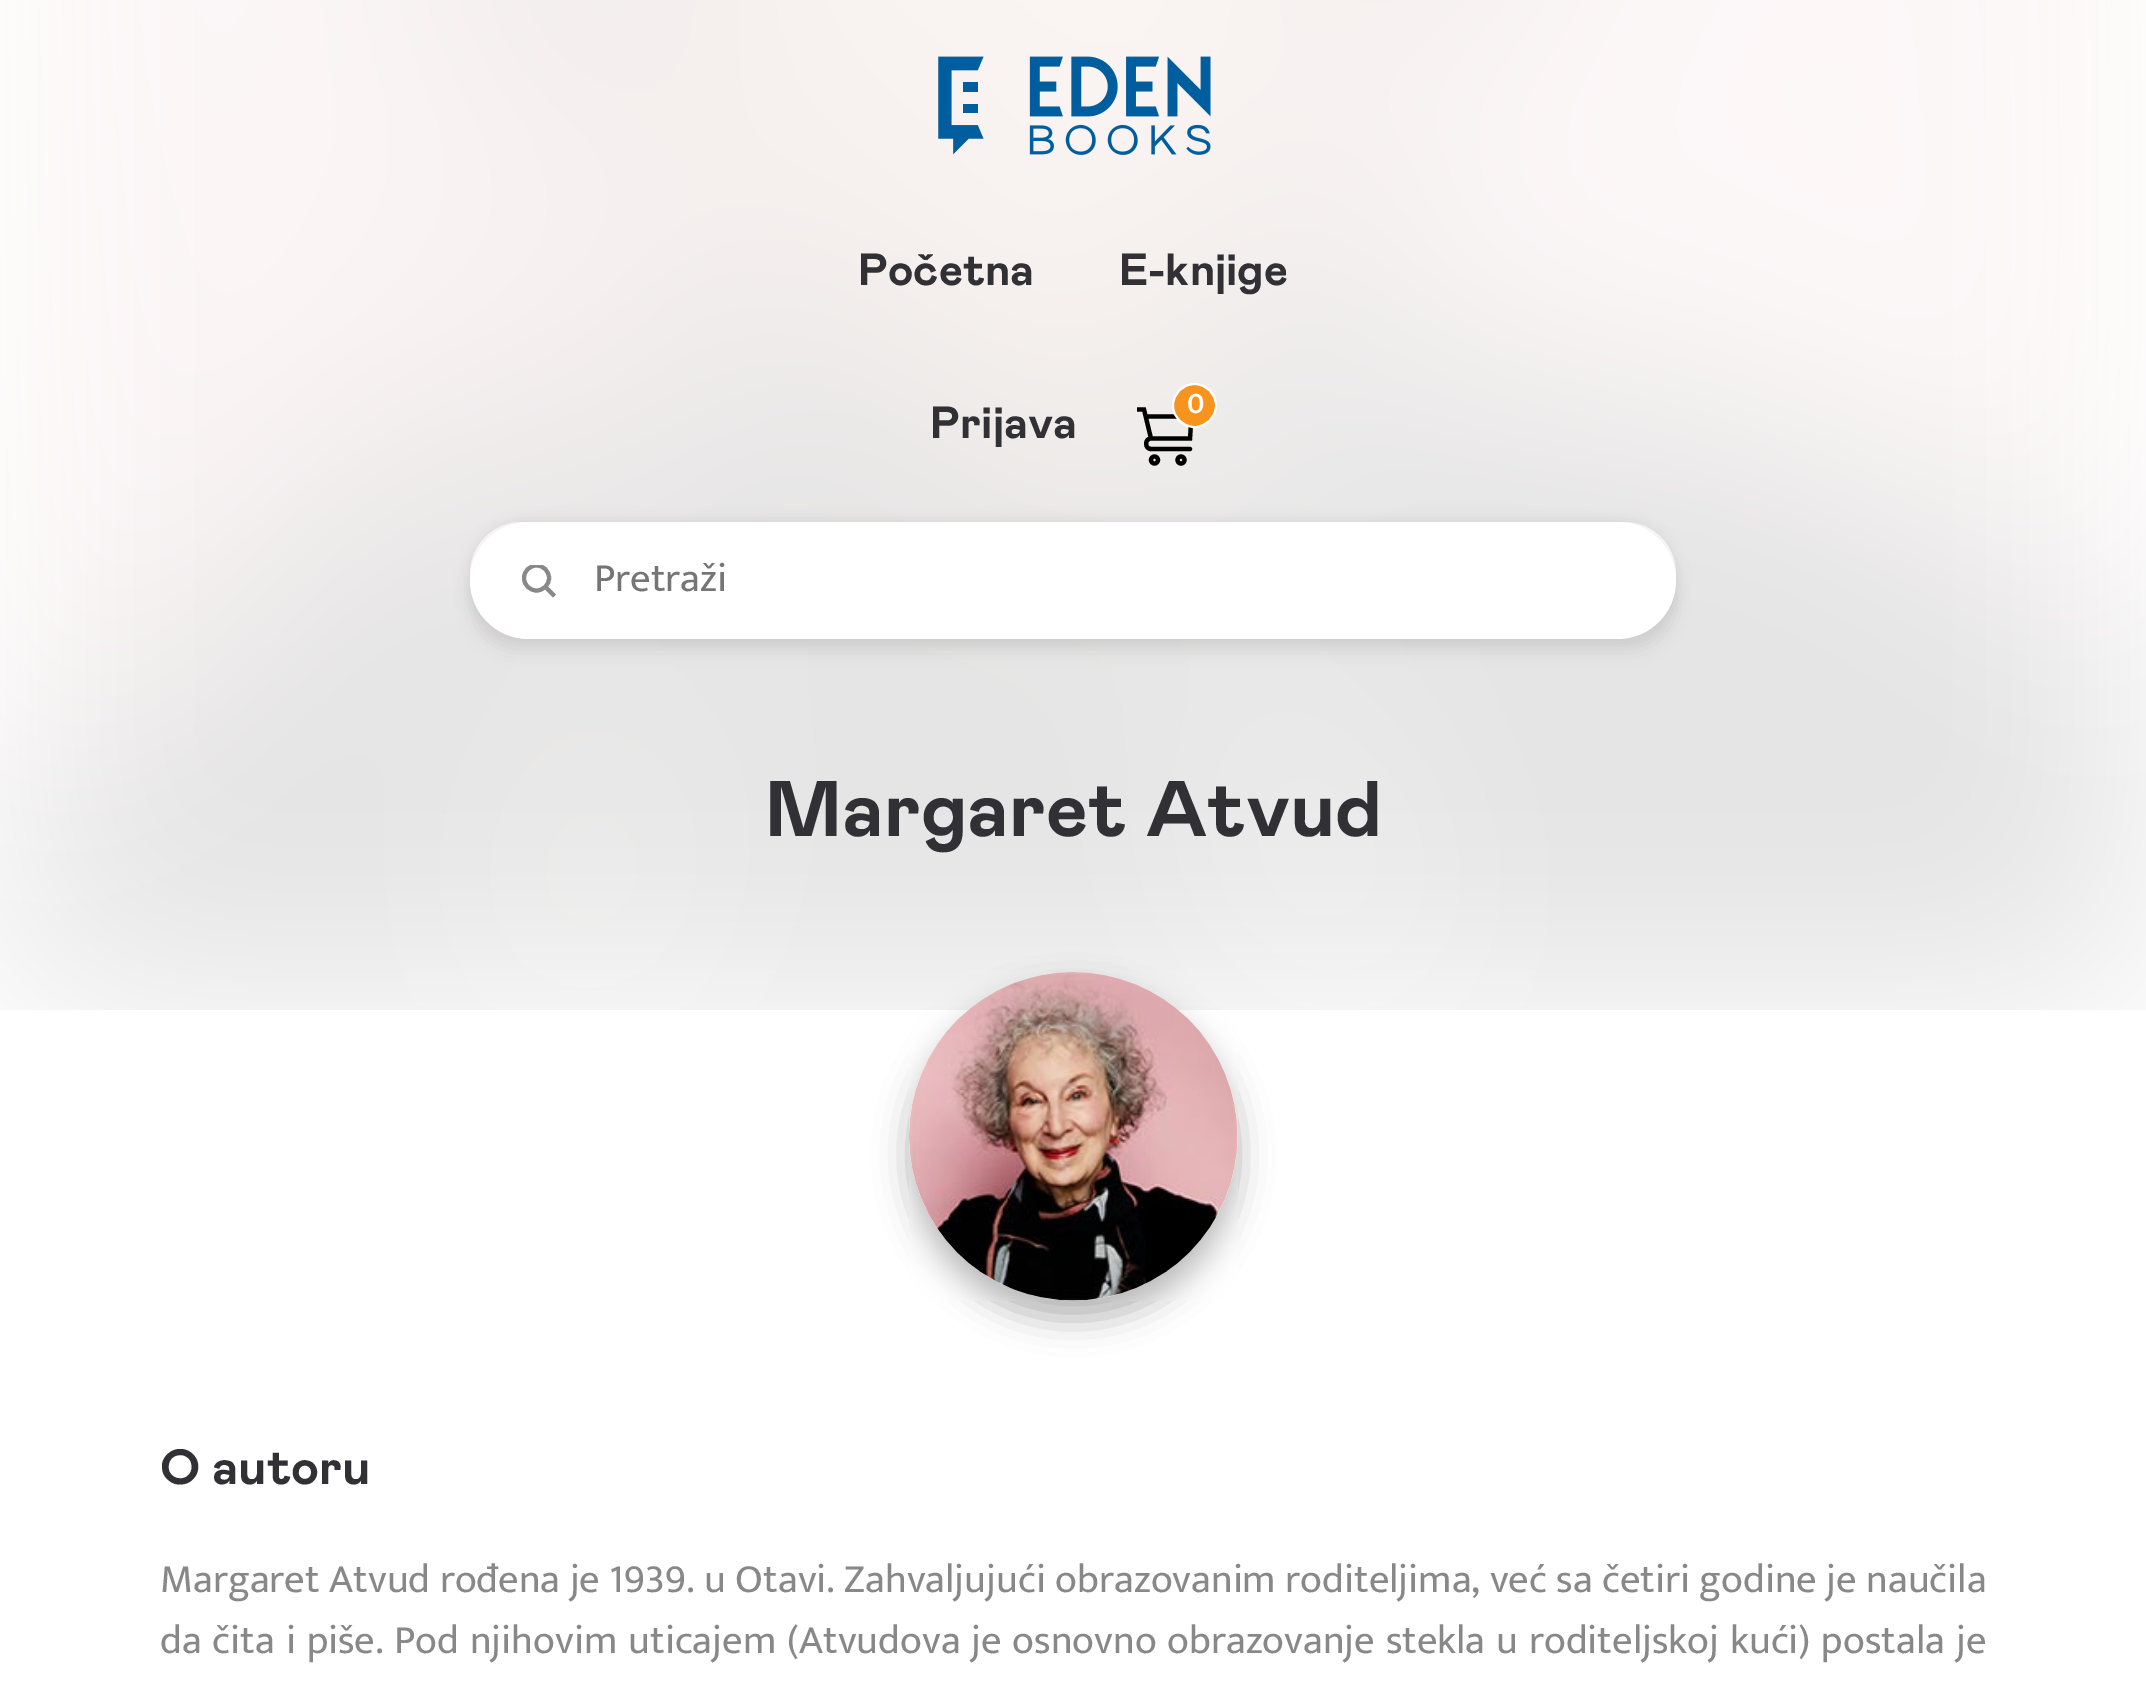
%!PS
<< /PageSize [2146 1699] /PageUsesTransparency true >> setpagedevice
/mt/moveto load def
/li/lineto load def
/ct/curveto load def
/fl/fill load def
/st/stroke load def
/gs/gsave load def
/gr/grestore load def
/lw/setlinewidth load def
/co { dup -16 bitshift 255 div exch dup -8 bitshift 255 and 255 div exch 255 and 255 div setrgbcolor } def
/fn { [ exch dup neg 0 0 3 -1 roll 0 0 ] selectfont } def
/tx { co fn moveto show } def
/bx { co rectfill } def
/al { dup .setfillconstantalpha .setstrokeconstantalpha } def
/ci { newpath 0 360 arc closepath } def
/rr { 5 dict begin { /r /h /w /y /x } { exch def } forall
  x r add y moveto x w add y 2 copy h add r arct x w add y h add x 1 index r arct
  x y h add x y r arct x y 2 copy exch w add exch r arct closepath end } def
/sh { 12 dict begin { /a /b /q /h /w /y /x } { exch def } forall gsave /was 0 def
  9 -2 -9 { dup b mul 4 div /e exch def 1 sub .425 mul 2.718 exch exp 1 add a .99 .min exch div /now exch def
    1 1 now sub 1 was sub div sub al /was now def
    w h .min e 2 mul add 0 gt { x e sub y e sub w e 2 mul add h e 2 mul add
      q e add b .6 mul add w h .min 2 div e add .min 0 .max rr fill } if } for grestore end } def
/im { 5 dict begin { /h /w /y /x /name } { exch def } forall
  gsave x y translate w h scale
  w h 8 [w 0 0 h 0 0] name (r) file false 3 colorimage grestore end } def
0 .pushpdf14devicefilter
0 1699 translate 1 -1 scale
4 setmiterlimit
0 0 2146 1699 16#FFFFFF bx
(media/2.raw) 0 0 2146 1010 im
(media/1.raw) 938 56 273 99 im
16#000000 co
4.2 lw
1151 438.5 mt 1144 409.5 li 1137 409.5 li 1151 438.5 mt 1190 438.5 li 1191.5 416.5 li 1146 416.5 li 1151 449 mt 1144.5 449 1144.5 438.5 1151 438.5 ct st
16#F7941D co
1194.5 405.5 21.5 ci gs fl gr
16#FFFFFF co
2 lw
st
16#000000 co
4.2 lw
1 setlinecap
1190 449 mt 1151 449 li st
0 setlinecap
1154.5 460 3.5 ci st
1181 460 3.5 ci st
470 549 1206 104 52 9 .06 sh
16#FFFFFF co
470 522 1206 104 52 rr fl
16#000000 co
470 522 1206 117 58.5 7 .08 sh
16#FFFFFF co
470 522 1206 117 58.5 rr fl
gs
522 565 34 32 rectclip
16#888888 co
4 lw
536.5 578 12.5 ci st
gr
16#888888 co
4 lw
546.5 588 mt 554.5 596 li st
16#000000 co
909 990 329 329 164.5 17 .29 sh
(media/3.raw) 909 972 329 329 im
(Početna) 858 285 /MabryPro-Bold 45 16#313035 tx
(E-knjige) 1119 285 /MabryPro-Bold 45 16#313035 tx
(0) 1187 413 /Mukta-Bold 29 16#FFFFFF tx
(Prijava) 930 438 /MabryPro-Bold 45 16#313035 tx
(Pretraži) 594 591 /Mukta-Regular 40.5 16#757575 tx
(Margaret Atvud) 765 836 /MabryPro-Bold 78.75 16#313035 tx
(O autoru) 160 1484 /MabryPro-Bold 49.5 16#313035 tx
/Mukta-Regular 40.5 fn
16#888888 co
160 1592 mt .5 0 32 (Margaret Atvud rođena je 1939. u Otavi. Zahvaljujući obrazovanim roditeljima, već sa četiri godine je naučila) widthshow
160 1653 mt 1.9 0 32 (da čita i piše. Pod njihovim uticajem \(Atvudova je osnovno obrazovanje stekla u roditeljskoj kući\) postala je) widthshow
.poppdf14devicefilter showpage
